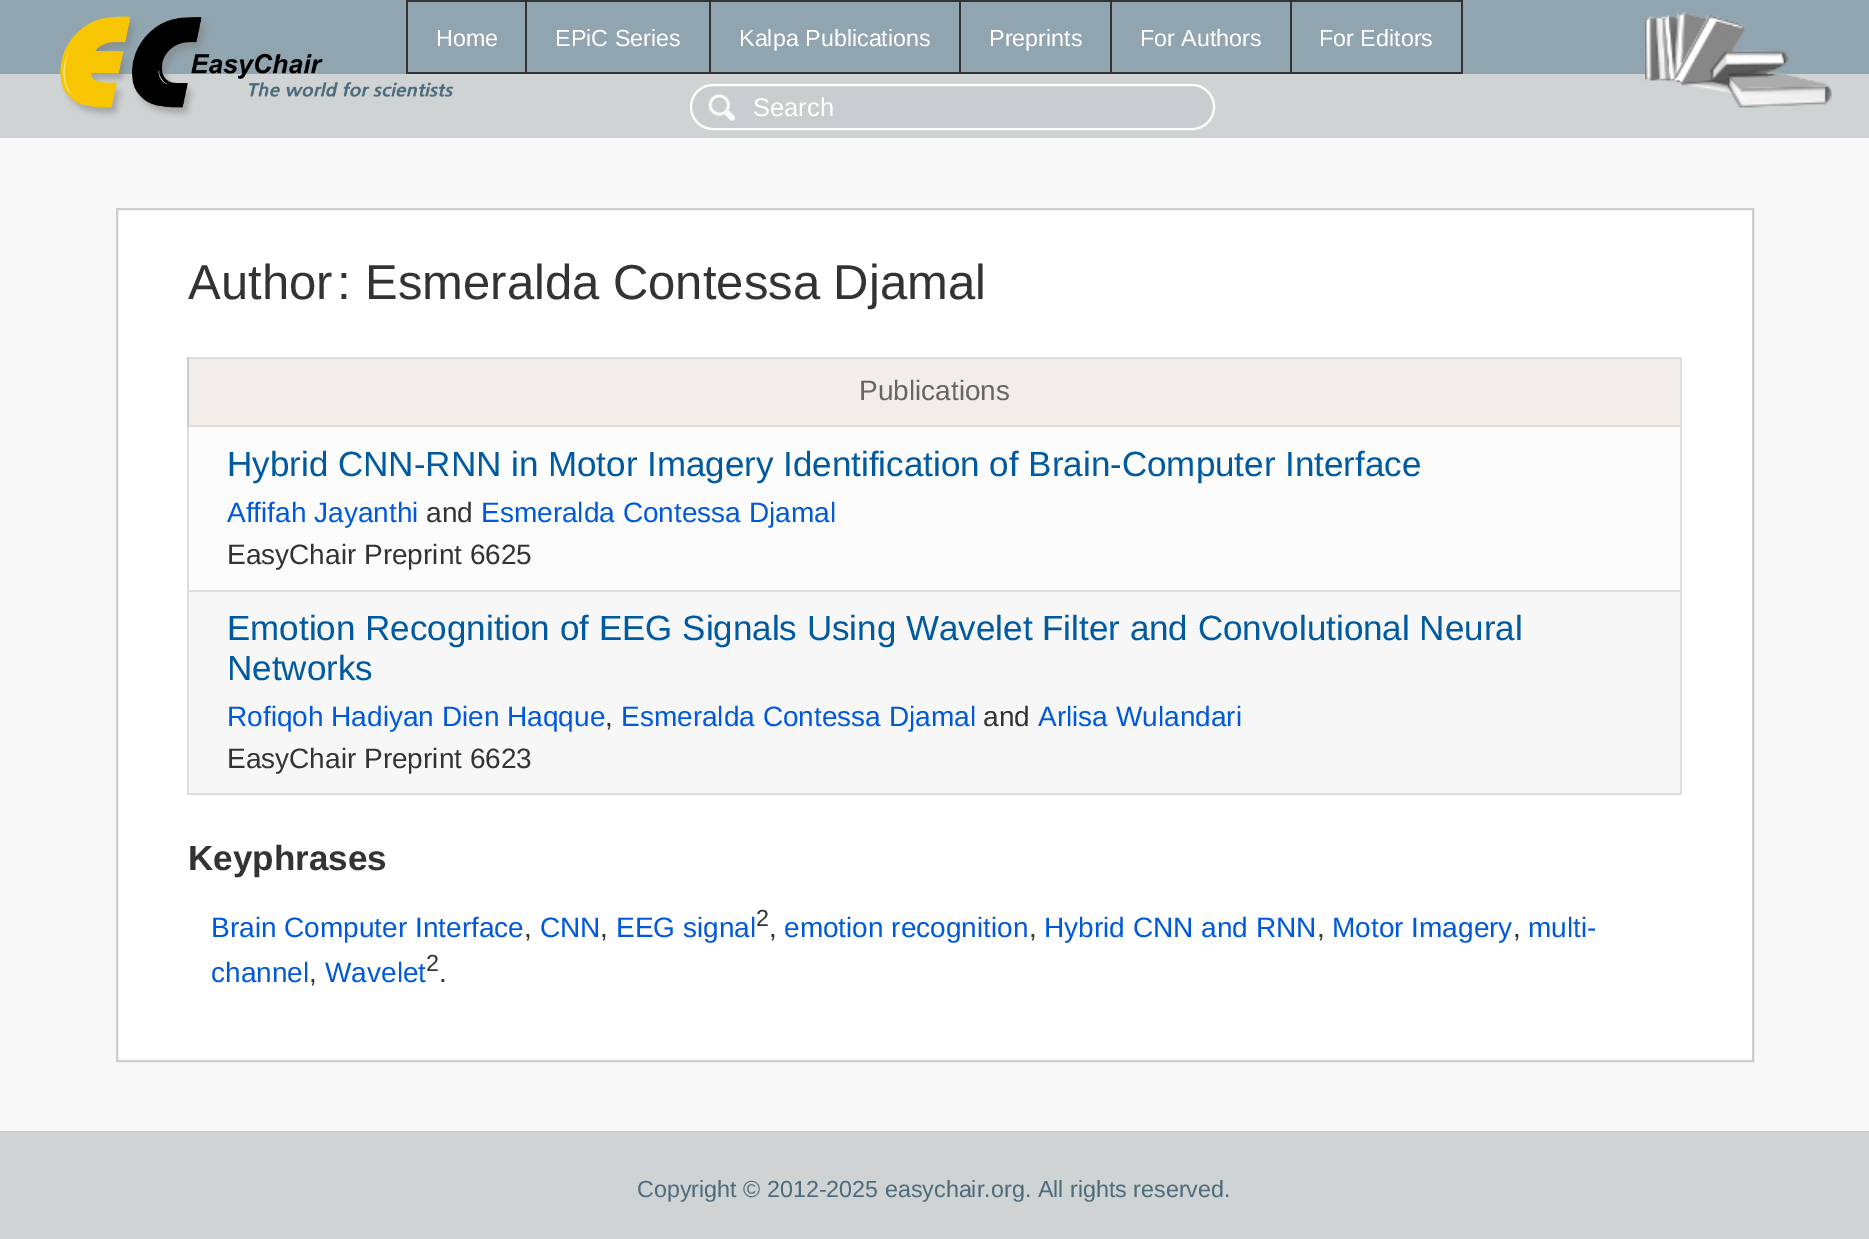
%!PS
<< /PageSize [1869 1239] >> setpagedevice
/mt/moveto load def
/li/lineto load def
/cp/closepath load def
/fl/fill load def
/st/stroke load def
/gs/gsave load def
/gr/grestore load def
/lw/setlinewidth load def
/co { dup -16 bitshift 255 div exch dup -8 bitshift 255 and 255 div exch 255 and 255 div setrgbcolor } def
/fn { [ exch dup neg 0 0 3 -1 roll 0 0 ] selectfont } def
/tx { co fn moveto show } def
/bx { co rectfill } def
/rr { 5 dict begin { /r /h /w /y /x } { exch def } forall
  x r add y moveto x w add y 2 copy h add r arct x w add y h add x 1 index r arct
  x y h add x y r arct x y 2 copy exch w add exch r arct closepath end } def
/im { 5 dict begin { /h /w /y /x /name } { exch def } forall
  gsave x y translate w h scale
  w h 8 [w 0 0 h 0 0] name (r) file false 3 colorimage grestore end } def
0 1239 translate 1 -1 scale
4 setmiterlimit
0 0 1869 1239 16#90A5B0 bx
0 76 1867 61 16#D0D3D4 bx
0 74 1869 2 16#D0D3D4 bx
(media/1.raw) 60 16 394 102 im
1290 0 173 2 16#333333 bx
1461 0 2 74 16#333333 bx
1290 72 173 2 16#333333 bx
1290 0 2 74 16#333333 bx
1110 0 182 2 16#333333 bx
1110 72 182 2 16#333333 bx
1110 0 2 74 16#333333 bx
959 0 152 2 16#333333 bx
959 72 152 2 16#333333 bx
959 0 2 74 16#333333 bx
709 0 252 2 16#333333 bx
709 72 252 2 16#333333 bx
709 0 2 74 16#333333 bx
525 0 186 2 16#333333 bx
525 72 186 2 16#333333 bx
525 0 2 74 16#333333 bx
406 0 121 2 16#333333 bx
406 72 121 2 16#333333 bx
406 0 2 74 16#333333 bx
(media/2.raw) 1645 11 187 97 im
1867 74 2 64 16#D0D3D4 bx
0 137 1869 1 16#D0D3D4 bx
16#C9CDD0 co
690 84 525 46 23 rr fl
(media/3.raw) 708 94 27 27 im
16#FFFFFF co
2 lw
691 85 523 44 22 rr st
0 138 1869 993 16#F8F8F8 bx
16#FFFFFF co
117 209 mt 1753 209 li 1753 1061 li 117 1061 li cp gs fl gr
16#CCCCCC co
st
187 357 1495 2 16#DEDEDE bx
1680 357 2 438 16#DEDEDE bx
187 793 1495 2 16#DEDEDE bx
187 427 2 368 16#DEDEDE bx
189 359 1491 66 16#F2EDE9 bx
187 425 1495 2 16#DEDEDE bx
187 357 2 70 16#CCCCCC bx
189 427 1491 163 16#FCFCFC bx
187 590 1495 2 16#DEDEDE bx
189 592 1491 201 16#F7F7F7 bx
0 1133 1869 106 16#D0D3D4 bx
0 1131 1869 2 16#CCCCCC bx
(Home) 436 46 /LiberationSans-Regular 23.3 16#FFFFFF tx
(EPiC Series) 555 46 /LiberationSans-Regular 23.3 16#FFFFFF tx
(Kalpa Publications) 739 46 /LiberationSans-Regular 23.3 16#FFFFFF tx
(Preprints) 989 46 /LiberationSans-Regular 23.3 16#FFFFFF tx
(For Authors) 1140 46 /LiberationSans-Regular 23.3 16#FFFFFF tx
(For Editors) 1319 46 /LiberationSans-Regular 23.3 16#FFFFFF tx
(Search) 753 116 /LiberationSans-Regular 25.5 16#FFFFFF tx
(Author) 188 299 /LiberationSans-Regular 49 16#333333 tx
(:) 337 299 /LiberationSans-Regular 49 16#333333 tx
(Esmeralda Contessa Djamal) 365 299 /LiberationSans-Regular 49 16#333333 tx
(Publications) 859 400 /LiberationSans-Regular 28 16#666666 tx
(Hybrid CNN-RNN in Motor Imagery Identification of Brain-Computer Interface) 227 476 /LiberationSans-Regular 35 16#005A9F tx
(Affifah Jayanthi) 227 522 /LiberationSans-Regular 28 16#0059DB tx
(and) 426 522 /LiberationSans-Regular 28 16#333333 tx
(Esmeralda Contessa Djamal) 481 522 /LiberationSans-Regular 28 16#0059DB tx
(EasyChair Preprint 6625) 227 564 /LiberationSans-Regular 28 16#333333 tx
(Emotion Recognition of EEG Signals Using Wavelet Filter and Convolutional Neural) 227 640 /LiberationSans-Regular 35 16#005A9F tx
(Networks) 227 680 /LiberationSans-Regular 35 16#005A9F tx
(Rofiqoh Hadiyan Dien Haqque) 227 726 /LiberationSans-Regular 28 16#0059DB tx
(,) 605 726 /LiberationSans-Regular 28 16#333333 tx
(Esmeralda Contessa Djamal) 621 726 /LiberationSans-Regular 28 16#0059DB tx
(and) 983 726 /LiberationSans-Regular 28 16#333333 tx
(Arlisa Wulandari) 1038 726 /LiberationSans-Regular 28 16#0059DB tx
(EasyChair Preprint 6623) 227 768 /LiberationSans-Regular 28 16#333333 tx
(Keyphrases) 188 870 /LiberationSans-Bold 35 16#333333 tx
(Brain Computer Interface) 211 937 /LiberationSans-Regular 28 16#0059DB tx
(,) 524 937 /LiberationSans-Regular 28 16#333333 tx
(CNN) 540 937 /LiberationSans-Regular 28 16#0059DB tx
(,) 600 937 /LiberationSans-Regular 28 16#333333 tx
(EEG signal) 616 937 /LiberationSans-Regular 28 16#0059DB tx
(2) 756 926 /LiberationSans-Regular 23.3 16#333333 tx
(,) 769 937 /LiberationSans-Regular 28 16#333333 tx
(emotion recognition) 784 937 /LiberationSans-Regular 28 16#0059DB tx
(,) 1029 937 /LiberationSans-Regular 28 16#333333 tx
(Hybrid CNN and RNN) 1044 937 /LiberationSans-Regular 28 16#0059DB tx
(,) 1317 937 /LiberationSans-Regular 28 16#333333 tx
(Motor Imagery) 1332 937 /LiberationSans-Regular 28 16#0059DB tx
(,) 1513 937 /LiberationSans-Regular 28 16#333333 tx
(multi-) 1528 937 /LiberationSans-Regular 28 16#0059DB tx
(channel) 211 982 /LiberationSans-Regular 28 16#0059DB tx
(,) 309 982 /LiberationSans-Regular 28 16#333333 tx
(Wavelet) 325 982 /LiberationSans-Regular 28 16#0059DB tx
(2) 426 971 /LiberationSans-Regular 23.3 16#333333 tx
(.) 439 982 /LiberationSans-Regular 28 16#333333 tx
(Copyright © 2012-2025 easychair.org. All rights reserved.) 637 1197 /LiberationSans-Regular 23.3 16#4C6C7C tx
showpage
